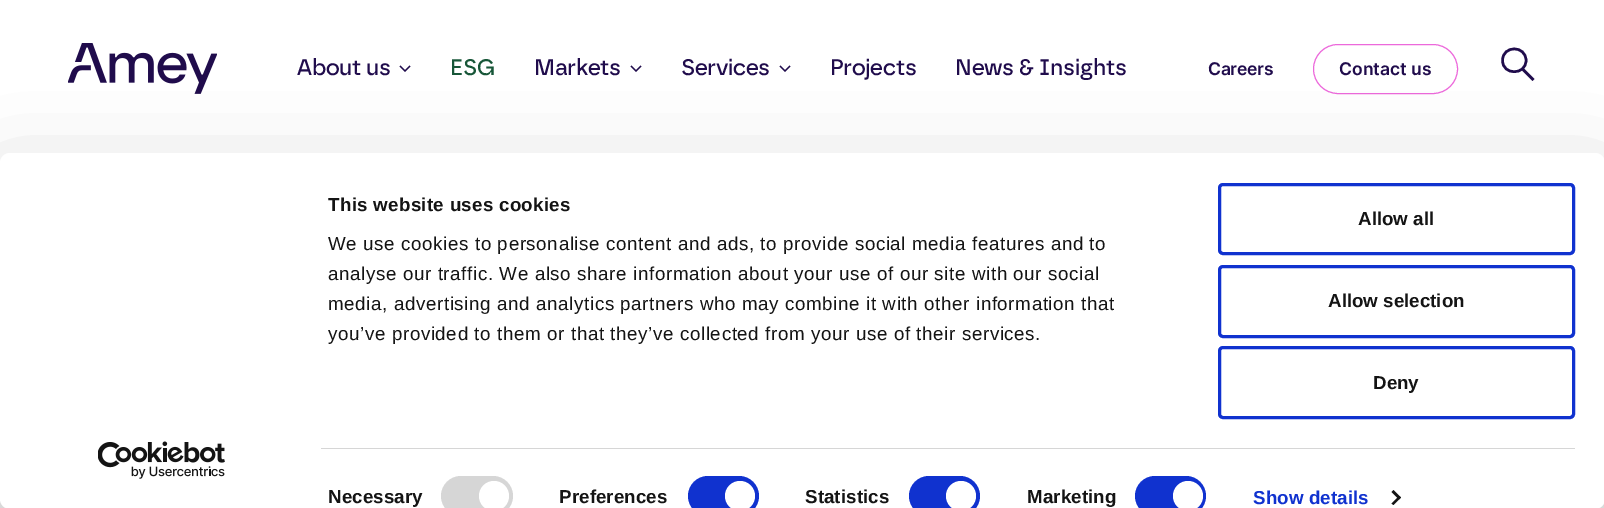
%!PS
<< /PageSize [1604 508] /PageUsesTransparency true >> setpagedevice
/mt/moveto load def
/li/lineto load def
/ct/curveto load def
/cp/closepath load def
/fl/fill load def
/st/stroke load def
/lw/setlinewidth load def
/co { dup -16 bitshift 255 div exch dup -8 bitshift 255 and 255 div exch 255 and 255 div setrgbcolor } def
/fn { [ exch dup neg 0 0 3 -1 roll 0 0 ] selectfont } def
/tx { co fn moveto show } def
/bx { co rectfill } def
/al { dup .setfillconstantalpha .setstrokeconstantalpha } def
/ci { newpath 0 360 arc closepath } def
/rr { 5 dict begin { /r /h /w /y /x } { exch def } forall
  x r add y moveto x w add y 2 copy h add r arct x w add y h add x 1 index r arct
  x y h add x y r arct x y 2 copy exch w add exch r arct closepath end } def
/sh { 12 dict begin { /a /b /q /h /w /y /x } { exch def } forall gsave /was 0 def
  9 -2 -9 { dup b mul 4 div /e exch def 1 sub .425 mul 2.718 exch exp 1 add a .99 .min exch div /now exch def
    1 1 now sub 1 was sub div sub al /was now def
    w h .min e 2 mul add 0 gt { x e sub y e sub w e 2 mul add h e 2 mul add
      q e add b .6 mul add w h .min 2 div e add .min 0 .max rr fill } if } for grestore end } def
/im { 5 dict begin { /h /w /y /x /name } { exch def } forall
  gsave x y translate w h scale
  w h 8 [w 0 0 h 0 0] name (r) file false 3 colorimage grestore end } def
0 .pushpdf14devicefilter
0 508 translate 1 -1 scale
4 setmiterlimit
0 0 1604 508 16#FFFFFF bx
(media/1.raw) 68 43 149 51 im
16#200C4C co
1.2 lw
410 66 mt 405 71 li 400 66 li st
641 66 mt 636 71 li 631 66 li st
790 66 mt 785 71 li 780 66 li st
16#EC69DB co
1 lw
1313.5 44.5 144 49 24.5 rr st
16#200C4C co
2.5 lw
2 setlinecap
1 setlinejoin
1532.5 79 mt 1522.5 69 li 1502.5 60.5 mt 1502.5 75.5 1526 75.5 1526 60.5 ct 1526 45 1502.5 45 1502.5 60.5 ct cp st
16#000000 co
0 190 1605 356 10 44 .3 sh
16#FFFFFF co
0 153 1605 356 10 rr fl
321 448 1254 1 16#D6D6D6 bx
441 476 72 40 20 rr fl
16#FFFFFF co
494 496 15 ci fl
16#1032CF co
688 476 71 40 20 rr fl
16#FFFFFF co
740 496 15 ci fl
16#1032CF co
909 476 71 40 20 rr fl
16#FFFFFF co
961 496 15 ci fl
16#1032CF co
1135 476 71 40 20 rr fl
16#FFFFFF co
1188 496 15 ci fl
16#141414 co
1393.5 490 mt 1401 497.5 li 1399 499.5 li 1391.5 492 li cp fl
1399 496 mt 1401 497.5 li 1393.5 505 li 1391.5 503.5 li cp fl
16#1032CF co
3 lw
0 setlinecap
0 setlinejoin
1219.5 184.5 354 69 3.5 rr st
1219.5 266.5 354 70 3.5 rr st
1219.5 347.5 354 70 3.5 rr st
(media/2.raw) 98 441 127 38 im
/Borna-Medium 22.5 fn
16#200C4C co
297 75 mt -.3 0 (About us) ashow
16#175638 co
450 75 mt -.3 0 (ESG) ashow
16#200C4C co
534 75 mt -.3 0 (Markets) ashow
681 75 mt -.3 0 (Services) ashow
830 75 mt -.3 0 (Projects) ashow
955 75 mt -.3 0 (News & Insights) ashow
/Inter-SemiBold 17.5 fn
1208 75 mt -.3 0 (Careers) ashow
(Contact us) 1339 75 /Inter-SemiBold 17.5 16#200C4C tx
/LiberationSans-Bold 18.75 fn
16#141414 co
328 211 mt .3 0 (This website uses cookies) ashow
/LiberationSans-Regular 18.75 fn
328 250 mt .62 0 (We use cookies to personalise content and ads, to provide social media features and to) ashow
328 280 mt .62 0 (analyse our traffic. We also share information about your use of our site with our social) ashow
328 310 mt .62 0 (media, advertising and analytics partners who may combine it with other information that) ashow
328 340 mt .62 0 (you’ve provided to them or that they’ve collected from your use of their services.) ashow
/LiberationSans-Bold 18.75 fn
328 503 mt .1 0 (Necessary) ashow
559 503 mt .1 0 (Preferences) ashow
805 503 mt .1 0 (Statistics) ashow
1027 503 mt .1 0 (Marketing) ashow
16#1032CF co
1253 504 mt .1 0 (Show details) ashow
(Allow all) 1358 225 /LiberationSans-Bold 18.75 16#141414 tx
(Allow selection) 1328 307 /LiberationSans-Bold 18.75 16#141414 tx
(Deny) 1373 389 /LiberationSans-Bold 18.75 16#141414 tx
.poppdf14devicefilter showpage
